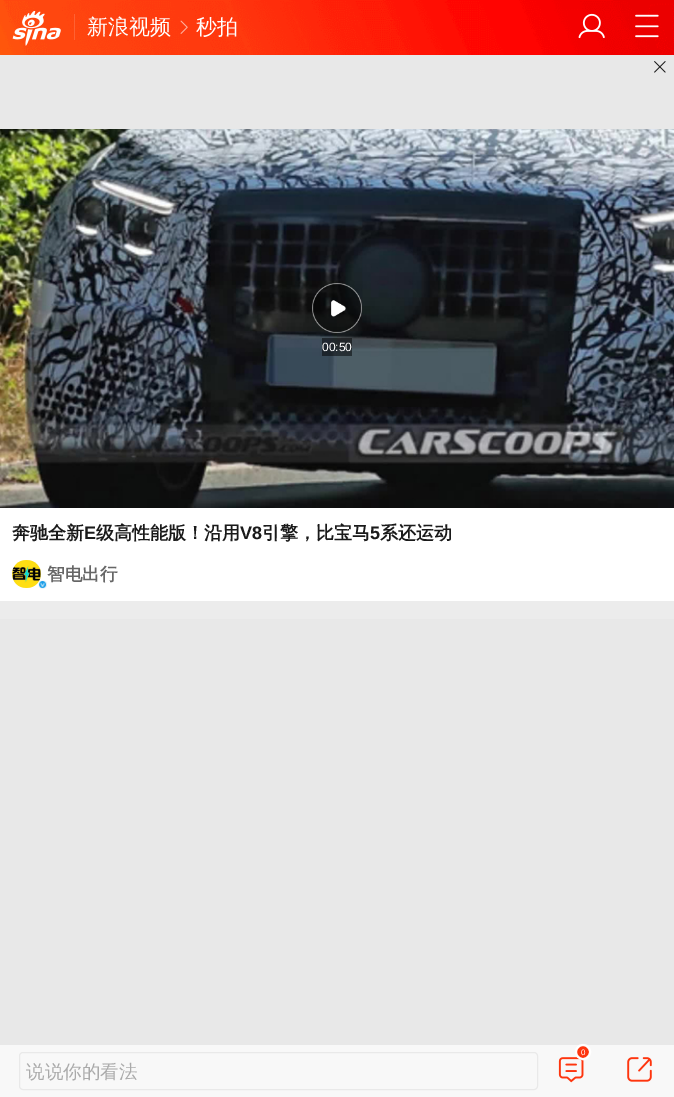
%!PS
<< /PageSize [674 1097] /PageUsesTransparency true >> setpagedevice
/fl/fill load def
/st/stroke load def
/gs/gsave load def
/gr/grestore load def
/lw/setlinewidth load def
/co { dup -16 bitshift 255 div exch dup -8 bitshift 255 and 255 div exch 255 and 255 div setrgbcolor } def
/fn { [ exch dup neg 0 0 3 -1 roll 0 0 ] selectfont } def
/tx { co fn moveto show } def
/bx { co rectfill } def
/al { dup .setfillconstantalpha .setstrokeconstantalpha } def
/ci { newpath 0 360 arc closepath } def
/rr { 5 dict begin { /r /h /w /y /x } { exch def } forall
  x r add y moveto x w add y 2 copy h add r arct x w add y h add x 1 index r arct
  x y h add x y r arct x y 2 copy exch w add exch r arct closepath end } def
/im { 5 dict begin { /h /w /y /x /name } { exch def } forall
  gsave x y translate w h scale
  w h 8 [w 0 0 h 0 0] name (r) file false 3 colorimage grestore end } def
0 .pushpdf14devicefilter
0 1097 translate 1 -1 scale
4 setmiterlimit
0 0 674 1097 16#E8E8E8 bx
(media/1.raw) 0 0 674 55 im
(media/2.raw) 12 11 49 35 im
0.15 al
74 14 1 26 16#FFFFFF bx
1 al
(media/3.raw) 180 20 8 14 im
(media/4.raw) 578 13 27 26 im
(media/5.raw) 635 14 24 24 im
(media/6.raw) 654 61 12 12 im
0 508 674 93 16#FFFFFF bx
(media/7.raw) 0 129 674 379 im
(media/8.raw) 312 283 50 50 im
0.5 al
322 338 30 18 16#000000 bx
1 al
(media/9.raw) 12 560 29 28 im
(media/10.raw) 38 580 9 9 im
0 601 674 18 16#ECECEC bx
0 1045 674 52 16#F8F8F8 bx
(media/11.raw) 558 1057 26 26 im
16#FE350E co
583 1052 7 ci gs fl gr
16#FFFFFF co
2 lw
st
(media/12.raw) 627 1057 25 25 im
16#E9E9E9 co
1 lw
19.5 1052.5 518 37 3.5 rr st
(新浪视频) 87 34 /WenQuanYiZenHei-Medium 21 16#FFFFFF tx
(秒拍) 196 34 /WenQuanYiZenHei-Medium 21 16#FFFFFF tx
(00:50) 322 351 /LiberationSans-Regular 12 16#FFFFFF tx
(奔驰全新) 12 539 /WenQuanYiZenHei-Bold 18 16#1A1A1A tx
(E) 84 539 /LiberationSans-Bold 18 16#1A1A1A tx
(级高性能版！沿用) 96 539 /WenQuanYiZenHei-Bold 18 16#1A1A1A tx
(V8) 240 539 /LiberationSans-Bold 18 16#1A1A1A tx
(引擎，比宝马) 262 539 /WenQuanYiZenHei-Bold 18 16#1A1A1A tx
(5) 370 539 /LiberationSans-Bold 18 16#1A1A1A tx
(系还运动) 380 539 /WenQuanYiZenHei-Bold 18 16#1A1A1A tx
(智电出行) 47 580 /WenQuanYiZenHei-Bold 17.5 16#666666 tx
(0) 581 1055 /LiberationSans-Regular 8 16#FFFFFF tx
(说说你的看法) 26 1078 /WenQuanYiZenHei-Medium 18.5 16#AAAAAA tx
.poppdf14devicefilter showpage
